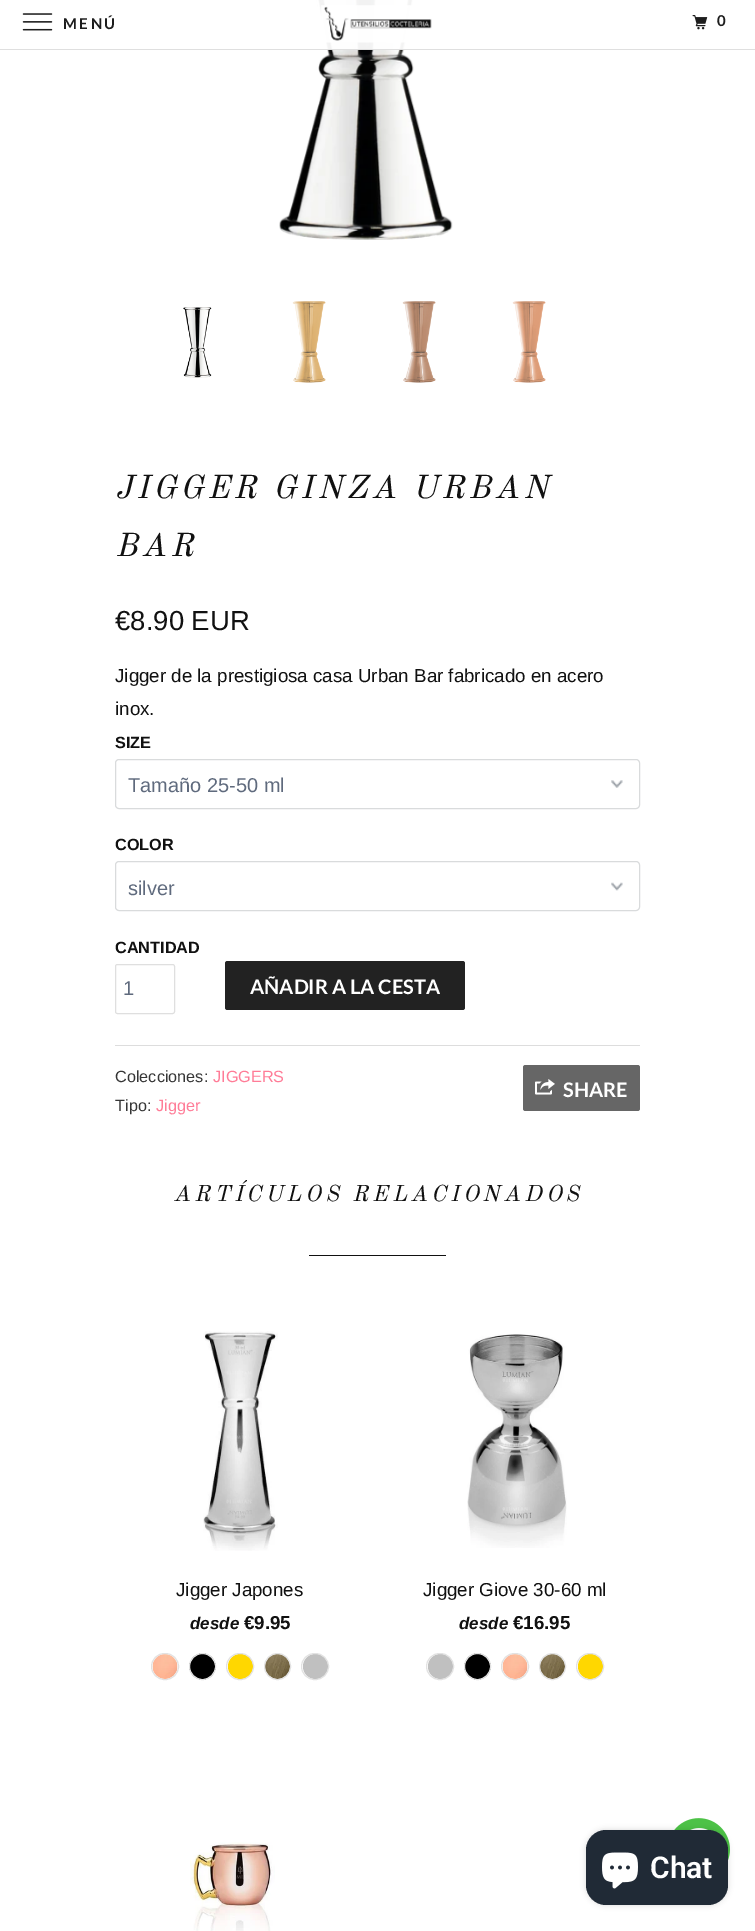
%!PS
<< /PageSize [755 1931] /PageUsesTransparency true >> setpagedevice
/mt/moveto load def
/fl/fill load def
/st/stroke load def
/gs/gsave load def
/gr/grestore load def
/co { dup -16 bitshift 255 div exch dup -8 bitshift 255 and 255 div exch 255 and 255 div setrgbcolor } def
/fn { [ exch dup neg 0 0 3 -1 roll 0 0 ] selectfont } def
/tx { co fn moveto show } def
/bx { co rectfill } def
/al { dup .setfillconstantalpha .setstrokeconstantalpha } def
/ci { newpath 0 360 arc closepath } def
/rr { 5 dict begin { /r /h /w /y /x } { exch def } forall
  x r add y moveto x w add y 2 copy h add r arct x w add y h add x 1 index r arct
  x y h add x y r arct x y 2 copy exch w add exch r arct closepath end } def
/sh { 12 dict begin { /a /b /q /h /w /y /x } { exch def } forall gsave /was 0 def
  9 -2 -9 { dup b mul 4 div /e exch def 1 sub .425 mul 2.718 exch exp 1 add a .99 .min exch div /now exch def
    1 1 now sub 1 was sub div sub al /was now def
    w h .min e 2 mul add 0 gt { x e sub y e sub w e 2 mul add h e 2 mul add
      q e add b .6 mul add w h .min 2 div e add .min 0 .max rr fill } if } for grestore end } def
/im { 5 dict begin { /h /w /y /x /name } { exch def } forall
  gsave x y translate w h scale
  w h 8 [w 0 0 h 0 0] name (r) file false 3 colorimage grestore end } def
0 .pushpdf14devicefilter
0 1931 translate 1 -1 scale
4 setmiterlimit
0 0 755 1931 16#FFFFFF bx
(media/4.raw) 279 0 174 240 im
0.95 al
318 0 96 50 16#FFFFFF bx
0 49 755 1 16#DDDDDD bx
1 al
(media/1.raw) 22 13 31 18 im
(media/2.raw) 321 5 111 38 im
(media/3.raw) 692 15 16 15 im
(media/5.raw) 183 307 29 71 im
(media/6.raw) 292 301 34 82 im
(media/7.raw) 402 301 34 82 im
(media/8.raw) 512 301 34 82 im
(media/9.raw) 611 780 12 8 im
16#D9DBDC co
115.5 759.5 524 49 3.5 rr st
(media/10.raw) 611 882 12 9 im
115.5 861.5 524 49 3.5 rr st
16#DFDFDF co
115.5 964.5 59 49 2 rr st
16#222222 co
225 961 240 49 2.5 rr fl
115 1045 525 1 16#DDDDDD bx
16#666666 co
523 1065 117 46 2.5 rr fl
(media/11.raw) 535 1079 20 16 im
309 1255 137 1 16#111111 bx
(media/12.raw) 203 1331 75 220 im
(media/13.raw) 152 1654 26 25 im
16#E2E2E2 co
151.5 1653.5 27 26 13 rr st
16#000000 co
202.5 1666.5 13 ci gs fl gr
16#E2E2E2 co
st
16#FFD700 co
240.5 1666.5 12.5 ci fl
16#E2E2E2 co
226.5 1653.5 27 26 13 rr st
(media/14.raw) 265 1654 25 25 im
277.5 1666.5 13 ci st
16#C0C0C0 co
315.5 1666.5 12.5 ci fl
16#E2E2E2 co
301.5 1653.5 27 26 13 rr st
(media/15.raw) 467 1334 100 214 im
16#C0C0C0 co
440.5 1666.5 12.5 ci fl
16#E2E2E2 co
426.5 1653.5 27 26 13 rr st
16#000000 co
477.5 1666.5 13 ci gs fl gr
16#E2E2E2 co
st
(media/16.raw) 502 1654 26 25 im
501.5 1653.5 27 26 13 rr st
(media/14.raw) 540 1654 25 25 im
552.5 1666.5 13 ci st
16#FFD700 co
590.5 1666.5 12.5 ci fl
16#E2E2E2 co
576.5 1653.5 27 26 13 rr st
(media/17.raw) 190 1842 85 89 im
(media/18.raw) 674 1818 56 42 im
16#000000 co
586 1830 142 75 20 3 .15 sh
16#202A36 co
586 1830 142 75 20 rr fl
(media/19.raw) 602 1852 36 37 im
/Lato-Bold 15 fn
16#1D1D1D co
63 29 mt 2.5 0 (MENÚ) ashow
717 26 mt 2.5 0 (0) ashow
/OldStandardTT-Italic 32.5 fn
16#111111 co
115 498 mt 3.75 0 (JIGGER GINZA URBAN) ashow
115 556 mt 3.75 0 (BAR) ashow
(€8.90 EUR) 115 630 /LiberationSans-Regular 27.5 16#111111 tx
(Jigger de la prestigiosa casa Urban Bar fabricado en acero) 115 682 /LiberationSans-Regular 18.75 16#111111 tx
(inox.) 115 715 /LiberationSans-Regular 18.75 16#111111 tx
(SIZE) 115 748 /LiberationSans-Bold 16.25 16#111111 tx
(Tamaño 25-50 ml) 128 792 /LiberationSans-Regular 20 16#5F6A7D tx
(COLOR) 115 850 /LiberationSans-Bold 16.25 16#111111 tx
(silver) 128 895 /LiberationSans-Regular 20 16#5F6A7D tx
(CANTIDAD) 115 953 /LiberationSans-Bold 16.25 16#111111 tx
(1) 123 995 /LiberationSans-Regular 20 16#5F6A7D tx
(AÑADIR A LA CESTA) 250 994 /Lato-Bold 20 16#FFFFFF tx
(Colecciones:) 115 1082 /LiberationSans-Regular 16.25 16#363636 tx
(JIGGERS) 213 1082 /LiberationSans-Regular 16.25 16#FF7C97 tx
(SHARE) 563 1097 /Lato-Bold 20 16#FFFFFF tx
(Tipo:) 115 1111 /LiberationSans-Regular 16.25 16#363636 tx
(Jigger) 156 1111 /LiberationSans-Regular 16.25 16#FF7C97 tx
/OldStandardTT-Italic 22.5 fn
16#111111 co
173 1201 mt 3.75 0 (ARTÍCULOS RELACIONADOS) ashow
(Jigger Japones) 176 1596 /LiberationSans-Regular 18.75 16#111111 tx
(desde) 190 1629 /LiberationSans-BoldItalic 17 16#111111 tx
(€9.95) 244 1629 /LiberationSans-Bold 18.75 16#111111 tx
(Jigger Giove 30-60 ml) 423 1596 /LiberationSans-Regular 18.75 16#111111 tx
(desde) 459 1629 /LiberationSans-BoldItalic 17 16#111111 tx
(€16.95) 513 1629 /LiberationSans-Bold 18.75 16#111111 tx
(Chat) 650 1878 /Roboto-SemiBold 30 16#FFFFFF tx
.poppdf14devicefilter showpage
